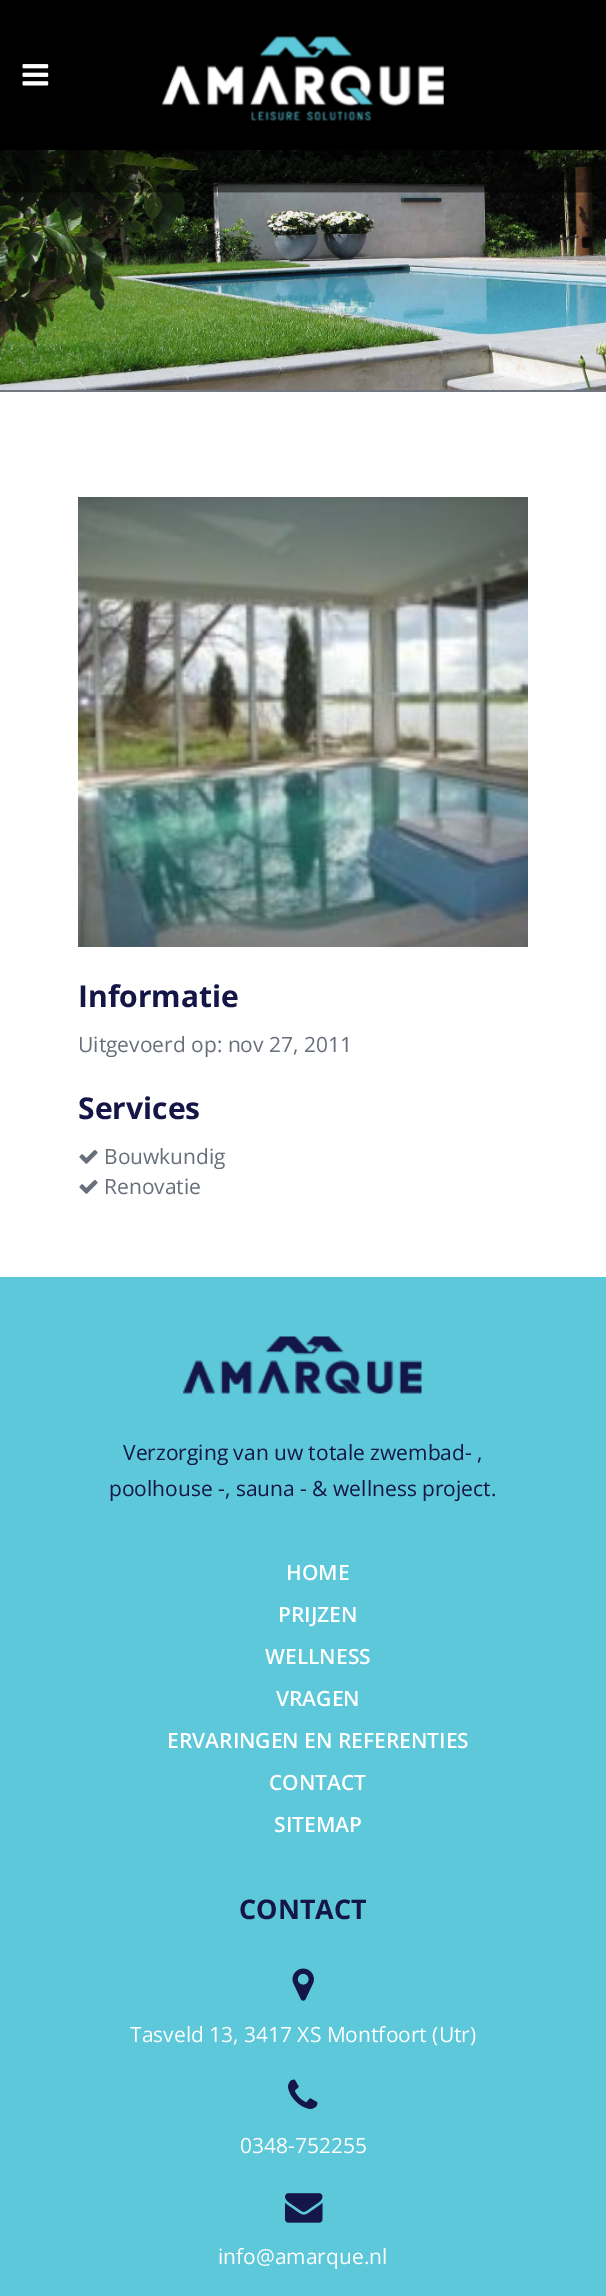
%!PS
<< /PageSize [606 2296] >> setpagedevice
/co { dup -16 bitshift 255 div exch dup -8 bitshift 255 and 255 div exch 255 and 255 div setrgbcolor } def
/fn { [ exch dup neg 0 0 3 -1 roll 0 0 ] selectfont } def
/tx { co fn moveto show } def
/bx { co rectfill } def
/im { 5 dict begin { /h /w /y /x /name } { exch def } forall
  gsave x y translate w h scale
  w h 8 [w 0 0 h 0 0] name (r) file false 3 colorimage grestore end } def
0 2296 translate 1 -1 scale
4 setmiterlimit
0 0 606 2296 16#FFFFFF bx
0 0 606 150 16#000000 bx
(media/1.raw) 22 64 27 22 im
(media/2.raw) 162 36 282 85 im
0 390 606 2 16#72767E bx
(media/3.raw) 0 150 606 240 im
(media/4.raw) 78 497 450 450 im
(media/5.raw) 79 1149 19 15 im
(media/5.raw) 79 1179 19 15 im
0 1277 606 1019 16#5DC8DA bx
(media/6.raw) 183 1336 239 58 im
(media/7.raw) 292 1968 22 33 im
(media/8.raw) 288 2079 30 30 im
(media/9.raw) 285 2193 38 30 im
(Informatie) 78 1007 /OpenSans-Bold 30 16#131646 tx
(Uitgevoerd op: nov 27, 2011) 78 1052 /OpenSans-Regular 21 16#676F7A tx
(Services) 78 1119 /OpenSans-Bold 30 16#131646 tx
(Bouwkundig) 104 1164 /OpenSans-Regular 21 16#676F7A tx
(Renovatie) 104 1194 /OpenSans-Regular 21 16#676F7A tx
(Verzorging van uw totale zwembad- ,) 123 1460 /OpenSans-Regular 21 16#131646 tx
(poolhouse -, sauna - & wellness project.) 109 1496 /OpenSans-Regular 21 16#131646 tx
(HOME) 286 1580 /OpenSans-SemiBold 21 16#FFFFFF tx
(PRIJZEN) 278 1622 /OpenSans-SemiBold 21 16#FFFFFF tx
(WELLNESS) 265 1664 /OpenSans-SemiBold 21 16#FFFFFF tx
(VRAGEN) 276 1706 /OpenSans-SemiBold 21 16#FFFFFF tx
(ERVARINGEN EN REFERENTIES) 167 1748 /OpenSans-SemiBold 21 16#FFFFFF tx
(CONTACT) 269 1790 /OpenSans-SemiBold 21 16#FFFFFF tx
(SITEMAP) 274 1832 /OpenSans-SemiBold 21 16#FFFFFF tx
(CONTACT) 239 1919 /OpenSans-Bold 27 16#131646 tx
(Tasveld 13, 3417 XS Montfoort \(Utr\)) 130 2042 /OpenSans-Regular 21 16#FFFFFF tx
(0348-752255) 240 2153 /OpenSans-Regular 21 16#FFFFFF tx
(info@amarque.nl) 218 2264 /OpenSans-Regular 21 16#FFFFFF tx
showpage
